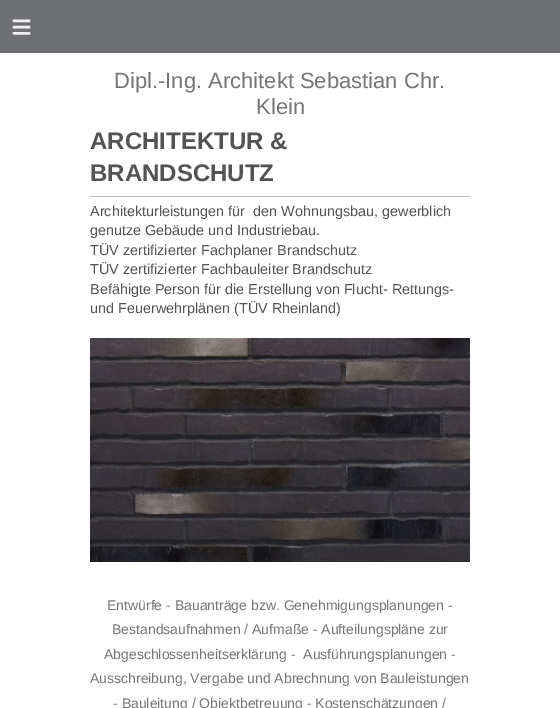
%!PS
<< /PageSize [560 708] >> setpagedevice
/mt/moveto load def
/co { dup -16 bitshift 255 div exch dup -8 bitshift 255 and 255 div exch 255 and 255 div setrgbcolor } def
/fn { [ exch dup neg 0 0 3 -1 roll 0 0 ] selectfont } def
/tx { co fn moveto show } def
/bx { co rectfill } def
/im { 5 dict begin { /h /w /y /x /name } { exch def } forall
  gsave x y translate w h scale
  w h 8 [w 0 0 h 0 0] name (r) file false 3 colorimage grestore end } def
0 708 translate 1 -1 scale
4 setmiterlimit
0 0 560 708 16#FFFFFF bx
0 0 560 53 16#6E6F73 bx
90 196 380 1 16#BABABA bx
(media/1.raw) 90 338 380 224 im
/LiberationSans-Regular 36 fn
16#F1F1F1 co
11 39 mt 10 0 (≡) ashow
(Dipl.-Ing. Architekt Sebastian Chr.) 114 88 /LiberationSans-Regular 22 16#757575 tx
(Klein) 256 114 /LiberationSans-Regular 22 16#757575 tx
(ARCHITEKTUR &) 90 149 /LiberationSans-Bold 24 16#535353 tx
(BRANDSCHUTZ) 90 181 /LiberationSans-Bold 24 16#535353 tx
(Architekturleistungen für  den Wohnungsbau, gewerblich) 90 216 /LiberationSans-Regular 14.4 16#535353 tx
(genutze Gebäude und Industriebau.) 90 235 /LiberationSans-Regular 14.4 16#535353 tx
(TÜV zertifizierter Fachplaner Brandschutz) 90 255 /LiberationSans-Regular 14.4 16#535353 tx
(TÜV zertifizierter Fachbauleiter Brandschutz) 90 274 /LiberationSans-Regular 14.4 16#535353 tx
(Befähigte Person für die Erstellung von Flucht- Rettungs-) 90 294 /LiberationSans-Regular 14.4 16#535353 tx
(und Feuerwehrplänen \(TÜV Rheinland\)) 90 313 /LiberationSans-Regular 14.4 16#535353 tx
(Entwürfe - Bauanträge bzw. Genehmigungsplanungen -) 107 610 /LiberationSans-Regular 14 16#757575 tx
(Bestandsaufnahmen / Aufmaße - Aufteilungspläne zur) 112 634 /LiberationSans-Regular 14 16#757575 tx
(Abgeschlossenheitserklärung -  Ausführungsplanungen -) 104 659 /LiberationSans-Regular 14 16#757575 tx
(Ausschreibung, Vergabe und Abrechnung von Bauleistungen) 90 683 /LiberationSans-Regular 14 16#757575 tx
(- Bauleitung / Objektbetreuung - Kostenschätzungen /) 113 708 /LiberationSans-Regular 14 16#757575 tx
showpage
